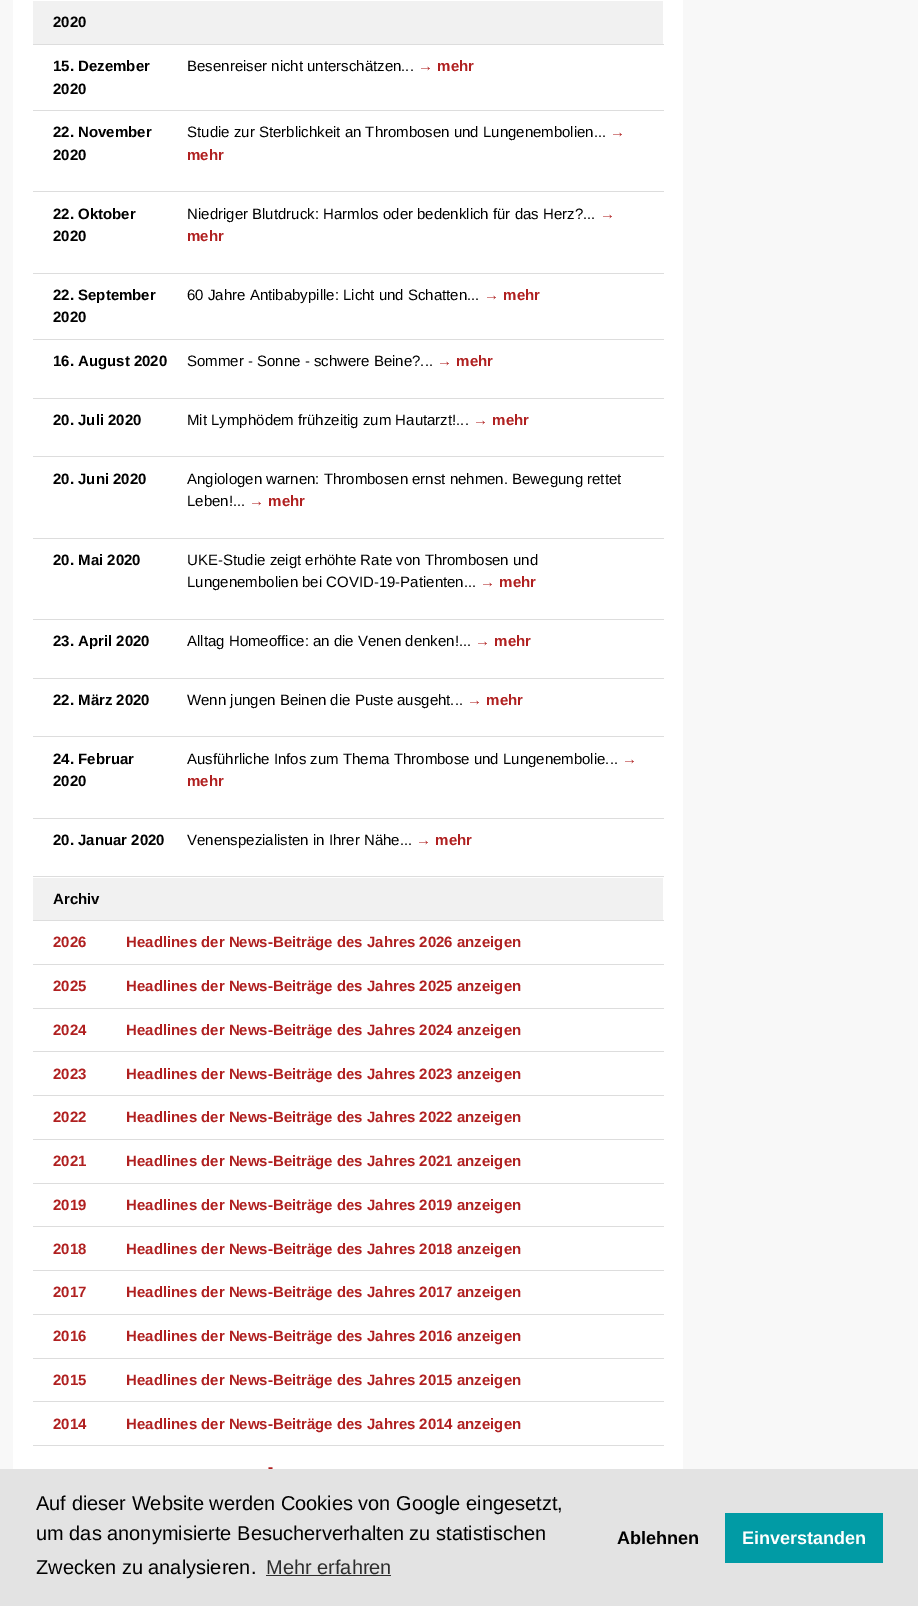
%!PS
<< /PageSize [918 1606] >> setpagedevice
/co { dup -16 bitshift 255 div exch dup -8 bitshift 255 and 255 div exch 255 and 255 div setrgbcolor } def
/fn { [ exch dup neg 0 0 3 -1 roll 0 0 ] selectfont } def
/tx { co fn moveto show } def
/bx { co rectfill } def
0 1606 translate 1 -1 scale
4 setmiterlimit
0 0 918 1606 16#F8F8F8 bx
13 0 670 1469 16#FFFFFF bx
33 1 630 43 16#F1F1F1 bx
33 44 631 1 16#DDDDDD bx
33 110 631 1 16#DDDDDD bx
33 191 631 1 16#DDDDDD bx
33 273 631 1 16#DDDDDD bx
33 339 631 1 16#DDDDDD bx
33 398 631 1 16#DDDDDD bx
33 456 631 1 16#DDDDDD bx
33 538 631 1 16#DDDDDD bx
33 619 631 1 16#DDDDDD bx
33 678 631 1 16#DDDDDD bx
33 736 631 1 16#DDDDDD bx
33 818 631 1 16#DDDDDD bx
33 876 631 1 16#DDDDDD bx
33 878 630 42 16#F1F1F1 bx
33 920 631 1 16#DDDDDD bx
33 964 631 1 16#DDDDDD bx
33 1008 631 1 16#DDDDDD bx
33 1051 631 1 16#DDDDDD bx
33 1095 631 1 16#DDDDDD bx
33 1139 631 1 16#DDDDDD bx
33 1183 631 1 16#DDDDDD bx
33 1226 631 1 16#DDDDDD bx
33 1270 631 1 16#DDDDDD bx
33 1314 631 1 16#DDDDDD bx
33 1358 631 1 16#DDDDDD bx
33 1401 631 1 16#DDDDDD bx
33 1445 631 1 16#DDDDDD bx
(2020) 53 27 /LiberationSans-Bold 15 16#000000 tx
(15. Dezember) 53 71 /LiberationSans-Bold 15 16#000000 tx
(2020) 53 94 /LiberationSans-Bold 15 16#000000 tx
(Besenreiser nicht unterschätzen...) 187 71 /LiberationSans-Regular 15 16#000000 tx
(→ mehr) 418 71 /LiberationSans-Bold 15 16#B02020 tx
(22. November) 53 137 /LiberationSans-Bold 15 16#000000 tx
(2020) 53 160 /LiberationSans-Bold 15 16#000000 tx
(Studie zur Sterblichkeit an Thrombosen und Lungenembolien...) 187 137 /LiberationSans-Regular 15 16#000000 tx
(→) 610 137 /LiberationSans-Bold 15 16#B02020 tx
(mehr) 187 160 /LiberationSans-Bold 15 16#B02020 tx
(22. Oktober) 53 219 /LiberationSans-Bold 15 16#000000 tx
(2020) 53 241 /LiberationSans-Bold 15 16#000000 tx
(Niedriger Blutdruck: Harmlos oder bedenklich für das Herz?...) 187 219 /LiberationSans-Regular 15 16#000000 tx
(→) 600 219 /LiberationSans-Bold 15 16#B02020 tx
(mehr) 187 241 /LiberationSans-Bold 15 16#B02020 tx
(22. September) 53 300 /LiberationSans-Bold 15 16#000000 tx
(2020) 53 322 /LiberationSans-Bold 15 16#000000 tx
(60 Jahre Antibabypille: Licht und Schatten...) 187 300 /LiberationSans-Regular 15 16#000000 tx
(→ mehr) 484 300 /LiberationSans-Bold 15 16#B02020 tx
(16. August 2020) 53 366 /LiberationSans-Bold 15 16#000000 tx
(Sommer - Sonne - schwere Beine?...) 187 366 /LiberationSans-Regular 15 16#000000 tx
(→ mehr) 437 366 /LiberationSans-Bold 15 16#B02020 tx
(20. Juli 2020) 53 425 /LiberationSans-Bold 15 16#000000 tx
(Mit Lymphödem frühzeitig zum Hautarzt!...) 187 425 /LiberationSans-Regular 15 16#000000 tx
(→ mehr) 473 425 /LiberationSans-Bold 15 16#B02020 tx
(20. Juni 2020) 53 484 /LiberationSans-Bold 15 16#000000 tx
(Angiologen warnen: Thrombosen ernst nehmen. Bewegung rettet) 187 484 /LiberationSans-Regular 15 16#000000 tx
(Leben!...) 187 506 /LiberationSans-Regular 15 16#000000 tx
(→ mehr) 249 506 /LiberationSans-Bold 15 16#B02020 tx
(20. Mai 2020) 53 565 /LiberationSans-Bold 15 16#000000 tx
(UKE-Studie zeigt erhöhte Rate von Thrombosen und) 187 565 /LiberationSans-Regular 15 16#000000 tx
(Lungenembolien bei COVID-19-Patienten...) 187 587 /LiberationSans-Regular 15 16#000000 tx
(→ mehr) 480 587 /LiberationSans-Bold 15 16#B02020 tx
(23. April 2020) 53 646 /LiberationSans-Bold 15 16#000000 tx
(Alltag Homeoffice: an die Venen denken!...) 187 646 /LiberationSans-Regular 15 16#000000 tx
(→ mehr) 475 646 /LiberationSans-Bold 15 16#B02020 tx
(22. März 2020) 53 705 /LiberationSans-Bold 15 16#000000 tx
(Wenn jungen Beinen die Puste ausgeht...) 187 705 /LiberationSans-Regular 15 16#000000 tx
(→ mehr) 467 705 /LiberationSans-Bold 15 16#B02020 tx
(24. Februar) 53 764 /LiberationSans-Bold 15 16#000000 tx
(2020) 53 786 /LiberationSans-Bold 15 16#000000 tx
(Ausführliche Infos zum Thema Thrombose und Lungenembolie...) 187 764 /LiberationSans-Regular 15 16#000000 tx
(→) 622 764 /LiberationSans-Bold 15 16#B02020 tx
(mehr) 187 786 /LiberationSans-Bold 15 16#B02020 tx
(20. Januar 2020) 53 845 /LiberationSans-Bold 15 16#000000 tx
(Venenspezialisten in Ihrer Nähe...) 187 845 /LiberationSans-Regular 15 16#000000 tx
(→ mehr) 416 845 /LiberationSans-Bold 15 16#B02020 tx
(Archiv) 53 904 /LiberationSans-Bold 15 16#000000 tx
(2026) 53 947 /LiberationSans-Bold 15 16#B02020 tx
(Headlines der News-Beiträge des Jahres 2026 anzeigen) 126 947 /LiberationSans-Bold 15 16#B02020 tx
(2025) 53 991 /LiberationSans-Bold 15 16#B02020 tx
(Headlines der News-Beiträge des Jahres 2025 anzeigen) 126 991 /LiberationSans-Bold 15 16#B02020 tx
(2024) 53 1035 /LiberationSans-Bold 15 16#B02020 tx
(Headlines der News-Beiträge des Jahres 2024 anzeigen) 126 1035 /LiberationSans-Bold 15 16#B02020 tx
(2023) 53 1079 /LiberationSans-Bold 15 16#B02020 tx
(Headlines der News-Beiträge des Jahres 2023 anzeigen) 126 1079 /LiberationSans-Bold 15 16#B02020 tx
(2022) 53 1122 /LiberationSans-Bold 15 16#B02020 tx
(Headlines der News-Beiträge des Jahres 2022 anzeigen) 126 1122 /LiberationSans-Bold 15 16#B02020 tx
(2021) 53 1166 /LiberationSans-Bold 15 16#B02020 tx
(Headlines der News-Beiträge des Jahres 2021 anzeigen) 126 1166 /LiberationSans-Bold 15 16#B02020 tx
(2019) 53 1210 /LiberationSans-Bold 15 16#B02020 tx
(Headlines der News-Beiträge des Jahres 2019 anzeigen) 126 1210 /LiberationSans-Bold 15 16#B02020 tx
(2018) 53 1254 /LiberationSans-Bold 15 16#B02020 tx
(Headlines der News-Beiträge des Jahres 2018 anzeigen) 126 1254 /LiberationSans-Bold 15 16#B02020 tx
(2017) 53 1297 /LiberationSans-Bold 15 16#B02020 tx
(Headlines der News-Beiträge des Jahres 2017 anzeigen) 126 1297 /LiberationSans-Bold 15 16#B02020 tx
(2016) 53 1341 /LiberationSans-Bold 15 16#B02020 tx
(Headlines der News-Beiträge des Jahres 2016 anzeigen) 126 1341 /LiberationSans-Bold 15 16#B02020 tx
(2015) 53 1385 /LiberationSans-Bold 15 16#B02020 tx
(Headlines der News-Beiträge des Jahres 2015 anzeigen) 126 1385 /LiberationSans-Bold 15 16#B02020 tx
(2014) 53 1429 /LiberationSans-Bold 15 16#B02020 tx
(Headlines der News-Beiträge des Jahres 2014 anzeigen) 126 1429 /LiberationSans-Bold 15 16#B02020 tx
(-) 268 1472 /LiberationSans-Bold 15 16#B02020 tx
0 1469 918 137 16#E3E3E3 bx
(Auf dieser Website werden Cookies von Google eingesetzt,) 36 1510 /LiberationSans-Regular 20 16#000000 tx
(um das anonymisierte Besucherverhalten zu statistischen) 36 1540 /LiberationSans-Regular 20 16#000000 tx
(Zwecken zu analysieren.) 36 1574 /LiberationSans-Regular 20 16#000000 tx
(Mehr erfahren) 266 1574 /LiberationSans-Regular 20 16#2D2D2D tx
266 1575 125 1 16#2D2D2D bx
(Ablehnen) 617 1544 /LiberationSans-Bold 18 16#000000 tx
725 1513 158 50 16#019BA5 bx
(Einverstanden) 742 1544 /LiberationSans-Bold 18 16#FFFFFF tx
showpage
